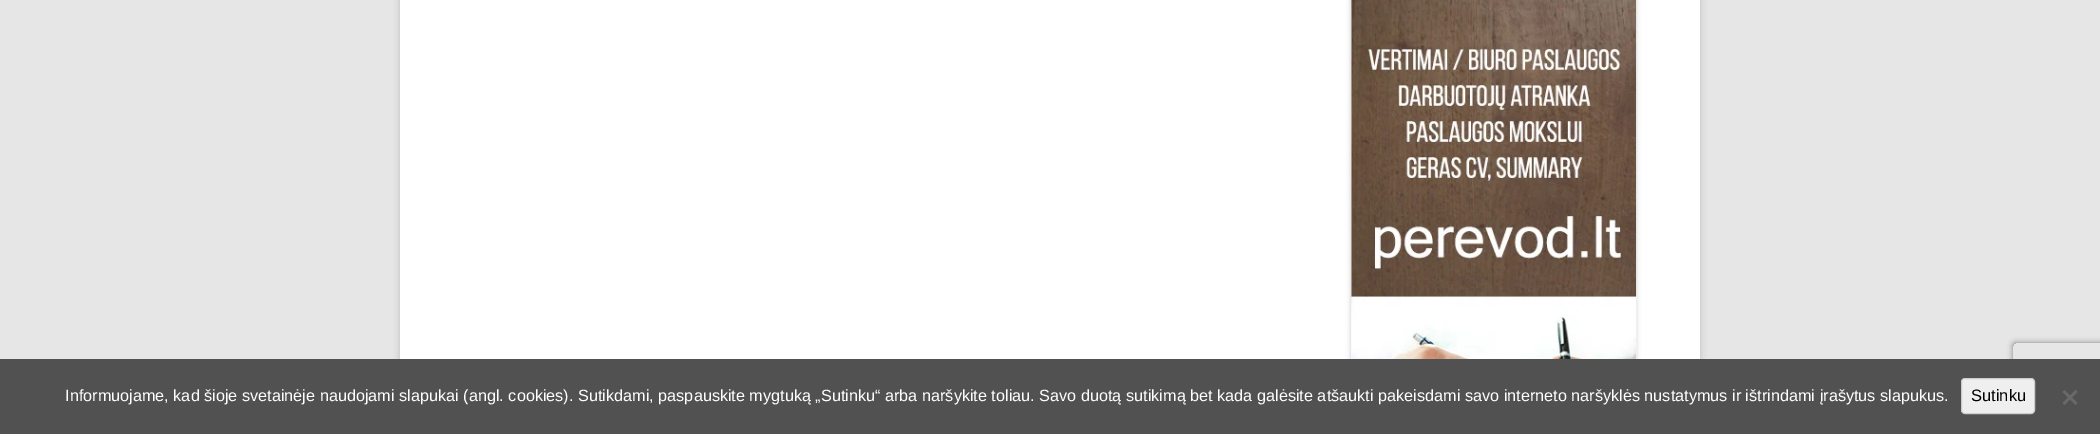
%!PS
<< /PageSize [2100 434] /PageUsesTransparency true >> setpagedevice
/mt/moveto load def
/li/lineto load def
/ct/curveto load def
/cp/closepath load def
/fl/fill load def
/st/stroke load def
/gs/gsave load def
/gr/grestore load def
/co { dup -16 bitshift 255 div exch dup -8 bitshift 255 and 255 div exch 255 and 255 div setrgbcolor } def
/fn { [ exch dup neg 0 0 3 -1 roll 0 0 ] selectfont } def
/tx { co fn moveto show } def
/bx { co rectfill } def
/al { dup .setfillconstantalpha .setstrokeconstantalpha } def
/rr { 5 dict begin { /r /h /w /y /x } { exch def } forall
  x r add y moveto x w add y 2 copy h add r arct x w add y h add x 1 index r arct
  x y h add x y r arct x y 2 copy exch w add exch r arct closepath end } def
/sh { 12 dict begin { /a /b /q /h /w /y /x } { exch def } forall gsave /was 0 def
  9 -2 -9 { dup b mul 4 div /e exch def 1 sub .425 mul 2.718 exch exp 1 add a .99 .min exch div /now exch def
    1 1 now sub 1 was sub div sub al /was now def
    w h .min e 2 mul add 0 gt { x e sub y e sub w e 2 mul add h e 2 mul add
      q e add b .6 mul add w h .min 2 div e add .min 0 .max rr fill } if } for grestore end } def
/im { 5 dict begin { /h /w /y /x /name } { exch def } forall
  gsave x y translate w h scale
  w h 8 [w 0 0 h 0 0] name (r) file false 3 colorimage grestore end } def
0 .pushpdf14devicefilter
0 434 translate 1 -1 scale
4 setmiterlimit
0 0 2100 434 16#E6E6E6 bx
16#646464 co
400 -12 1300 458 0 4 .3 sh
400 0 1300 359 16#FFFFFF bx
16#000000 co
1351 -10 285 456 4 2.5 .2 sh
(media/1.raw) 1351 0 286 359 im
gs
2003 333 mt 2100 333 li 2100 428 li 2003 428 li cp 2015.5 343 mt 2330.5 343 li 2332 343 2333 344 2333 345.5 ct 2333 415.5 li 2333 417 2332 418 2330.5 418 ct 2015.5 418 li 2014 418 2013 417 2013 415.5 ct 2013 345.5 li 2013 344 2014 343 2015.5 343 ct cp eoclip newpath
16#808080 co
2013 343 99 75 2.5 3 1 sh
gr
0 359 2100 75 16#515151 bx
16#EFEFEF co
1961.5 378.5 73 35 3.5 rr gs fl gr
16#CCCCCC co
st
16#696969 co
2075.5 390 mt 2077.5 392 li 2064.5 405 li 2062.5 403 li cp fl
2062.5 392 mt 2064.5 390 li 2077.5 403 li 2075.5 405 li cp fl
(Informuojame, kad šioje svetainėje naudojami slapukai \(angl. cookies\). Sutikdami, paspauskite mygtuką „Sutinku“ arba naršykite toliau. Savo duotą sutikimą bet kada galėsite atšaukti pakeisdami savo interneto naršyklės nustatymus ir ištrindami įrašytus slapukus.) 65 401 /LiberationSans-Regular 16.25 16#FFFFFF tx
(Sutinku) 1971 401 /LiberationSans-Regular 16.5 16#000000 tx
.poppdf14devicefilter showpage
